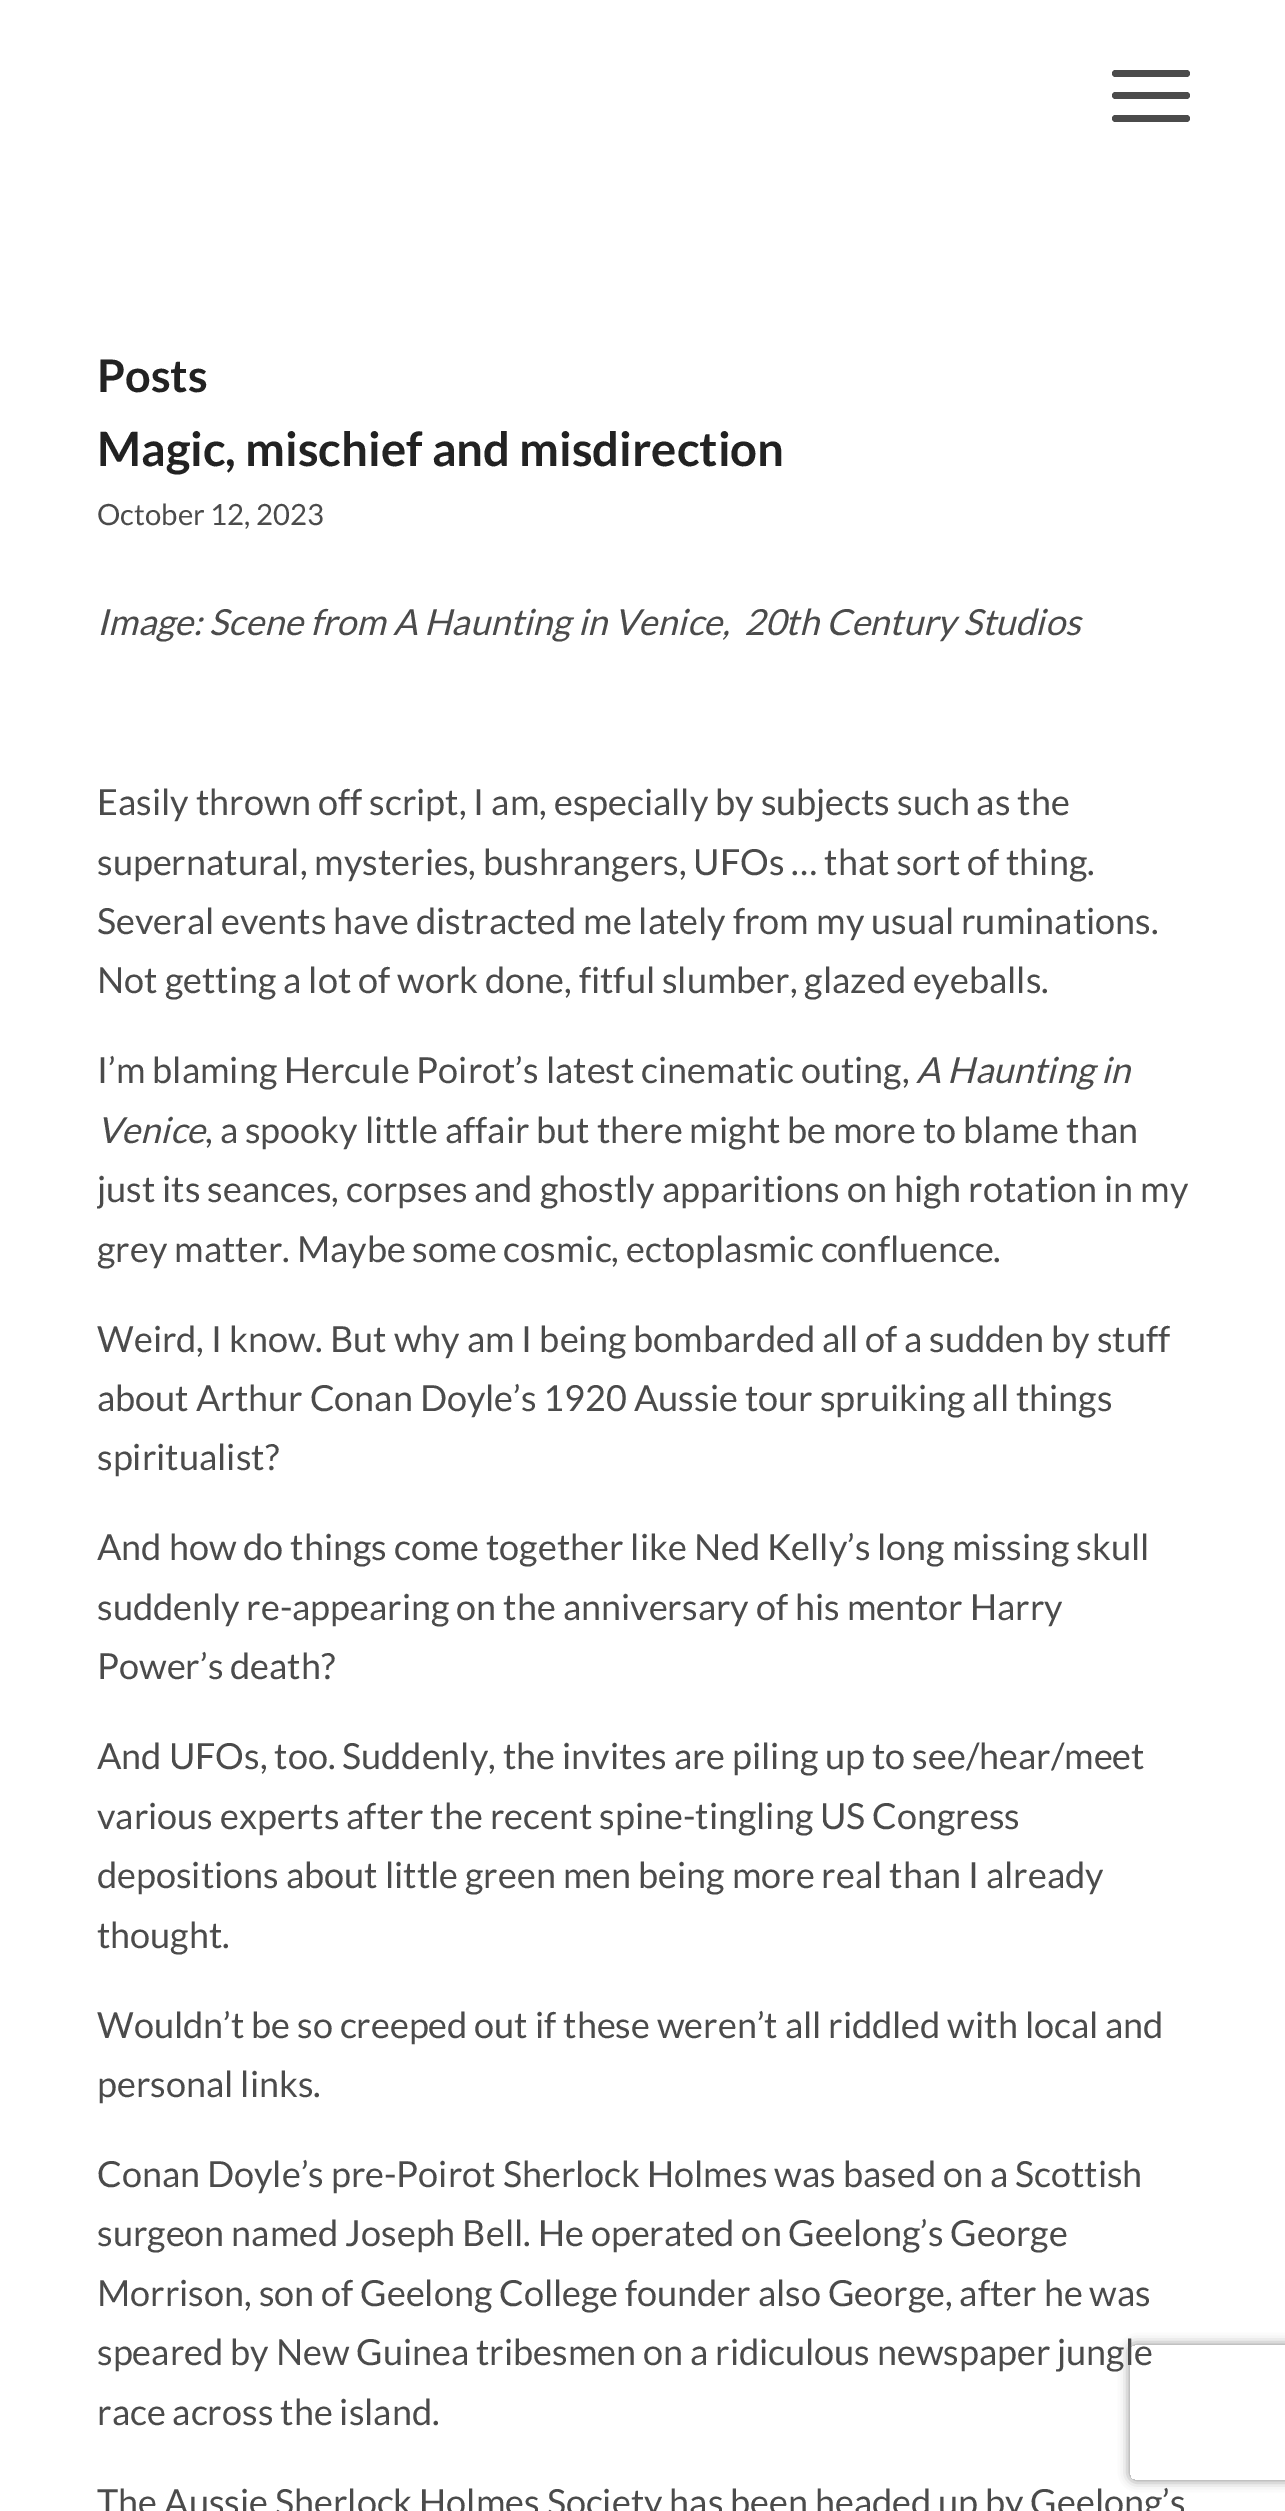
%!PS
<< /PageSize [1285 2511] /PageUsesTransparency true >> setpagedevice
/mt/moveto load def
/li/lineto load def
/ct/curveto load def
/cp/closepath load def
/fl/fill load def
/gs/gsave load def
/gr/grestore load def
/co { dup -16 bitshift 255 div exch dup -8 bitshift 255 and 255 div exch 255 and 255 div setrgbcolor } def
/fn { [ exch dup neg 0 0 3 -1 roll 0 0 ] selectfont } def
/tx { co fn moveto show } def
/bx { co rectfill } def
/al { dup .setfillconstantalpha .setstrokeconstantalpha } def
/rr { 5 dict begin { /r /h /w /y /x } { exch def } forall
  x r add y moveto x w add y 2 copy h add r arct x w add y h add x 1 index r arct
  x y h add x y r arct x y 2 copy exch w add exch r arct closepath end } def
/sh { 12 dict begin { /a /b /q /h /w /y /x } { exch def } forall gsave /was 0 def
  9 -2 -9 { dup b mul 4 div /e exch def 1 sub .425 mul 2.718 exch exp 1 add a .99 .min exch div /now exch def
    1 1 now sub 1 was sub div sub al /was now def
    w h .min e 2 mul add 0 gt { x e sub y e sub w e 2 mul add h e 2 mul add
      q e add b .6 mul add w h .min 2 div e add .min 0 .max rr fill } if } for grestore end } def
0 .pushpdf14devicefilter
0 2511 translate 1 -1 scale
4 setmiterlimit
0 0 1285 2511 16#FFFFFF bx
16#4B4B4B co
1112 92 78 7 3.5 rr fl
1112 70 78 7 3.5 rr fl
1112 115 78 7 3.5 rr fl
gs
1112 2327 mt 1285 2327 li 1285 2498 li 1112 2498 li cp 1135 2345 mt 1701 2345 li 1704 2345 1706 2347 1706 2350 ct 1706 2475 li 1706 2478 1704 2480 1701 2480 ct 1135 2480 li 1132 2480 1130 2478 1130 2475 ct 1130 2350 li 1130 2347 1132 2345 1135 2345 ct cp eoclip newpath
16#808080 co
1130 2345 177 135 5 5.5 1 sh
gr
(Posts) 97 392 /Lato-Bold 45 16#222222 tx
(Magic, mischief and misdirection) 97 466 /Lato-Bold 47.25 16#222222 tx
(October 12, 2023) 97 525 /Lato-Regular 29.25 16#4B4B4B tx
(Image: Scene from A Haunting in Venice,  20th Century Studios) 97 635 /Lato-Italic 36 16#4B4B4B tx
(Easily thrown off script, I am, especially by subjects such as the) 97 815 /Lato-Regular 36 16#4B4B4B tx
(supernatural, mysteries, bushrangers, UFOs … that sort of thing.) 97 875 /Lato-Regular 36 16#4B4B4B tx
(Several events have distracted me lately from my usual ruminations.) 97 934 /Lato-Regular 36 16#4B4B4B tx
(Not getting a lot of work done, fitful slumber, glazed eyeballs.) 97 993 /Lato-Regular 36 16#4B4B4B tx
(I’m blaming Hercule Poirot’s latest cinematic outing,) 97 1083 /Lato-Regular 36 16#4B4B4B tx
(A Haunting in) 916 1083 /Lato-Italic 36 16#4B4B4B tx
(Venice) 97 1143 /Lato-Italic 36 16#4B4B4B tx
(, a spooky little affair but there might be more to blame than) 205 1143 /Lato-Regular 36 16#4B4B4B tx
gs
97 416 1093 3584 rectclip
(just its seances, corpses and ghostly apparitions on high rotation in my) 97 1202 /Lato-Regular 36 16#4B4B4B tx
gr
(grey matter. Maybe some cosmic, ectoplasmic confluence.) 97 1262 /Lato-Regular 36 16#4B4B4B tx
(Weird, I know. But why am I being bombarded all of a sudden by stuff) 97 1352 /Lato-Regular 36 16#4B4B4B tx
(about Arthur Conan Doyle’s 1920 Aussie tour spruiking all things) 97 1411 /Lato-Regular 36 16#4B4B4B tx
(spiritualist?) 97 1470 /Lato-Regular 36 16#4B4B4B tx
(And how do things come together like Ned Kelly’s long missing skull) 97 1560 /Lato-Regular 36 16#4B4B4B tx
(suddenly re-appearing on the anniversary of his mentor Harry) 97 1620 /Lato-Regular 36 16#4B4B4B tx
(Power’s death?) 97 1679 /Lato-Regular 36 16#4B4B4B tx
(And UFOs, too. Suddenly, the invites are piling up to see/hear/meet) 97 1769 /Lato-Regular 36 16#4B4B4B tx
(various experts after the recent spine-tingling US Congress) 97 1829 /Lato-Regular 36 16#4B4B4B tx
(depositions about little green men being more real than I already) 97 1888 /Lato-Regular 36 16#4B4B4B tx
(thought.) 97 1948 /Lato-Regular 36 16#4B4B4B tx
(Wouldn’t be so creeped out if these weren’t all riddled with local and) 97 2038 /Lato-Regular 36 16#4B4B4B tx
(personal links.) 97 2097 /Lato-Regular 36 16#4B4B4B tx
(Conan Doyle’s pre-Poirot Sherlock Holmes was based on a Scottish) 97 2187 /Lato-Regular 36 16#4B4B4B tx
(surgeon named Joseph Bell. He operated on Geelong’s George) 97 2246 /Lato-Regular 36 16#4B4B4B tx
(Morrison, son of Geelong College founder also George, after he was) 97 2306 /Lato-Regular 36 16#4B4B4B tx
(speared by New Guinea tribesmen on a ridiculous newspaper jungle) 97 2365 /Lato-Regular 36 16#4B4B4B tx
(race across the island.) 97 2425 /Lato-Regular 36 16#4B4B4B tx
(The Aussie Sherlock Holmes Society has been headed up by Geelong’s) 97 2515 /Lato-Regular 36 16#4B4B4B tx
.poppdf14devicefilter showpage
